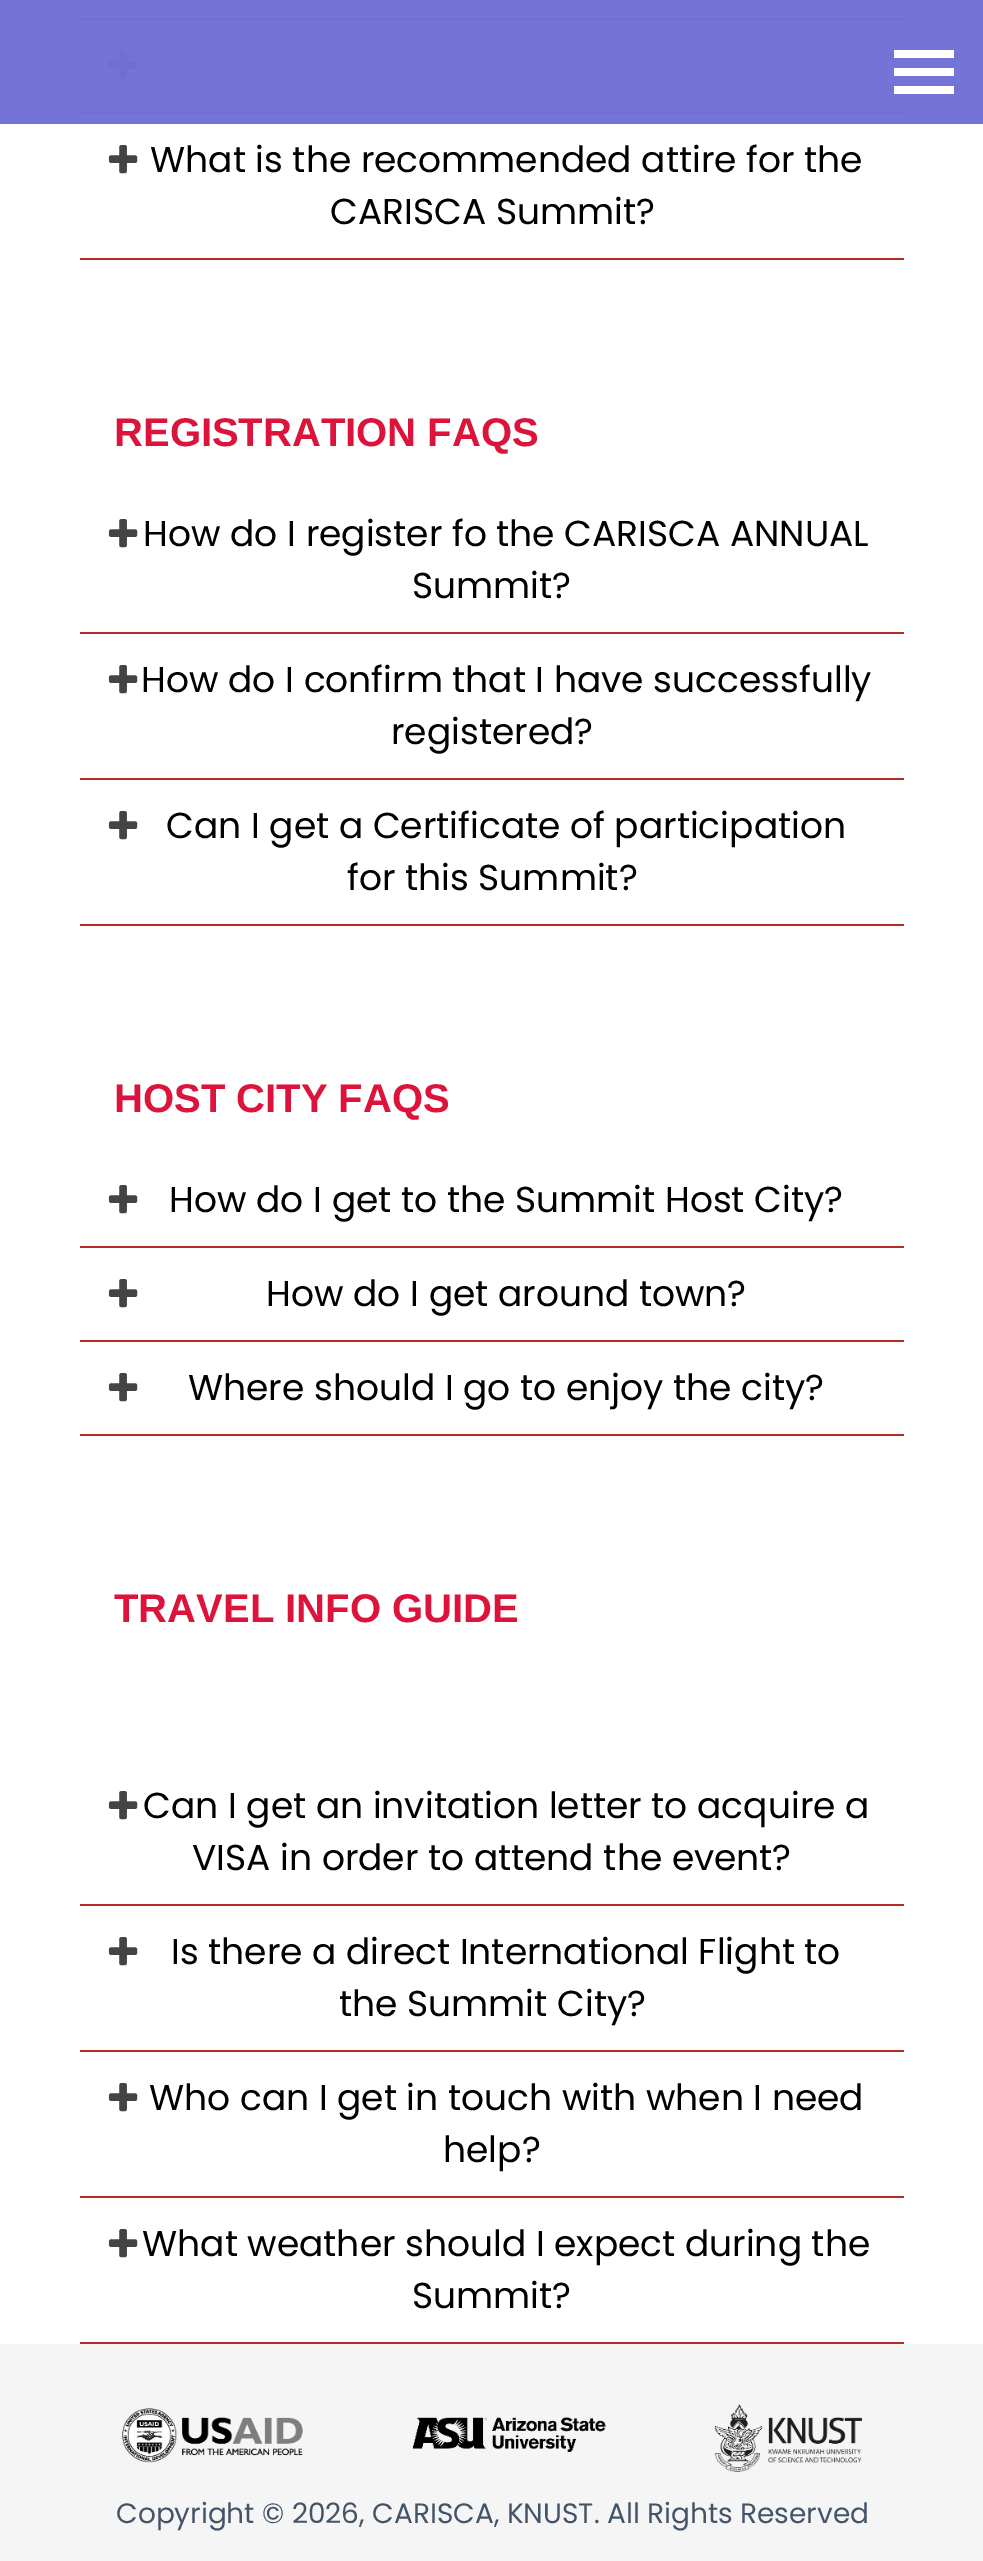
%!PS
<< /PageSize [983 2561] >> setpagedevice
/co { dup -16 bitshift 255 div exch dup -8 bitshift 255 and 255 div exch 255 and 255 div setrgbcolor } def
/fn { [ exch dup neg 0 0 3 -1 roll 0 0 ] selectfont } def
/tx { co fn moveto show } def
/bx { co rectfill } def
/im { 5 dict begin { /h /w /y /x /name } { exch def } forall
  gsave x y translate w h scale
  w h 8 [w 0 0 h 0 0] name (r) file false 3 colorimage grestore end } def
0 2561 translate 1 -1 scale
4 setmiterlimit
0 0 983 2561 16#FFFFFF bx
0 0 983 124 16#7574D6 bx
894 50 60 8 16#FFFFFF bx
894 68 60 8 16#FFFFFF bx
894 86 60 8 16#FFFFFF bx
80 18 824 2 16#736ED0 bx
80 112 824 2 16#736ED0 bx
(media/1.raw) 108 51 30 29 im
80 258 824 2 16#B42B2B bx
(media/2.raw) 108 145 30 29 im
80 632 824 2 16#B42B2B bx
(media/2.raw) 108 519 30 29 im
80 778 824 2 16#B42B2B bx
(media/2.raw) 108 665 30 29 im
80 924 824 2 16#B42B2B bx
(media/2.raw) 108 811 30 29 im
80 1246 824 2 16#B42B2B bx
(media/2.raw) 108 1185 30 29 im
80 1340 824 2 16#B42B2B bx
(media/2.raw) 108 1279 30 29 im
80 1434 824 2 16#B42B2B bx
(media/2.raw) 108 1373 30 29 im
80 1904 824 2 16#B42B2B bx
(media/2.raw) 108 1791 30 29 im
80 2050 824 2 16#B42B2B bx
(media/2.raw) 108 1937 30 29 im
80 2196 824 2 16#B42B2B bx
(media/2.raw) 108 2083 30 29 im
80 2342 824 2 16#B42B2B bx
(media/2.raw) 108 2229 30 29 im
0 2344 983 217 16#F5F5F5 bx
(media/3.raw) 122 2404 740 68 im
(What is the recommended attire for the) 150 172 /Poppins-Regular 36 16#000000 tx
(CARISCA Summit?) 330 224 /Poppins-Regular 36 16#000000 tx
(REGISTRATION FAQS) 114 446 /LiberationSans-Bold 40 16#DC143C tx
(How do I register fo the CARISCA ANNUAL) 143 546 /Poppins-Regular 36 16#000000 tx
(Summit?) 412 598 /Poppins-Regular 36 16#000000 tx
(How do I confirm that I have successfully) 141 692 /Poppins-Regular 36 16#000000 tx
(registered?) 391 744 /Poppins-Regular 36 16#000000 tx
(Can I get a Certificate of participation) 166 838 /Poppins-Regular 36 16#000000 tx
(for this Summit?) 347 890 /Poppins-Regular 36 16#000000 tx
(HOST CITY FAQS) 114 1112 /LiberationSans-Bold 40 16#DC143C tx
(How do I get to the Summit Host City?) 169 1212 /Poppins-Regular 36 16#000000 tx
(How do I get around town?) 266 1306 /Poppins-Regular 36 16#000000 tx
(Where should I go to enjoy the city?) 188 1400 /Poppins-Regular 36 16#000000 tx
(TRAVEL INFO GUIDE) 114 1622 /LiberationSans-Bold 40 16#DC143C tx
(Can I get an invitation letter to acquire a) 143 1818 /Poppins-Regular 36 16#000000 tx
(VISA in order to attend the event?) 192 1870 /Poppins-Regular 36 16#000000 tx
(Is there a direct International Flight to) 171 1964 /Poppins-Regular 36 16#000000 tx
(the Summit City?) 339 2016 /Poppins-Regular 36 16#000000 tx
(Who can I get in touch with when I need) 149 2110 /Poppins-Regular 36 16#000000 tx
(help?) 443 2162 /Poppins-Regular 36 16#000000 tx
(What weather should I expect during the) 142 2256 /Poppins-Regular 36 16#000000 tx
(Summit?) 412 2308 /Poppins-Regular 36 16#000000 tx
(Copyright © 2026, CARISCA, KNUST. All Rights Reserved) 116 2523 /Poppins-Regular 28 16#435469 tx
showpage
